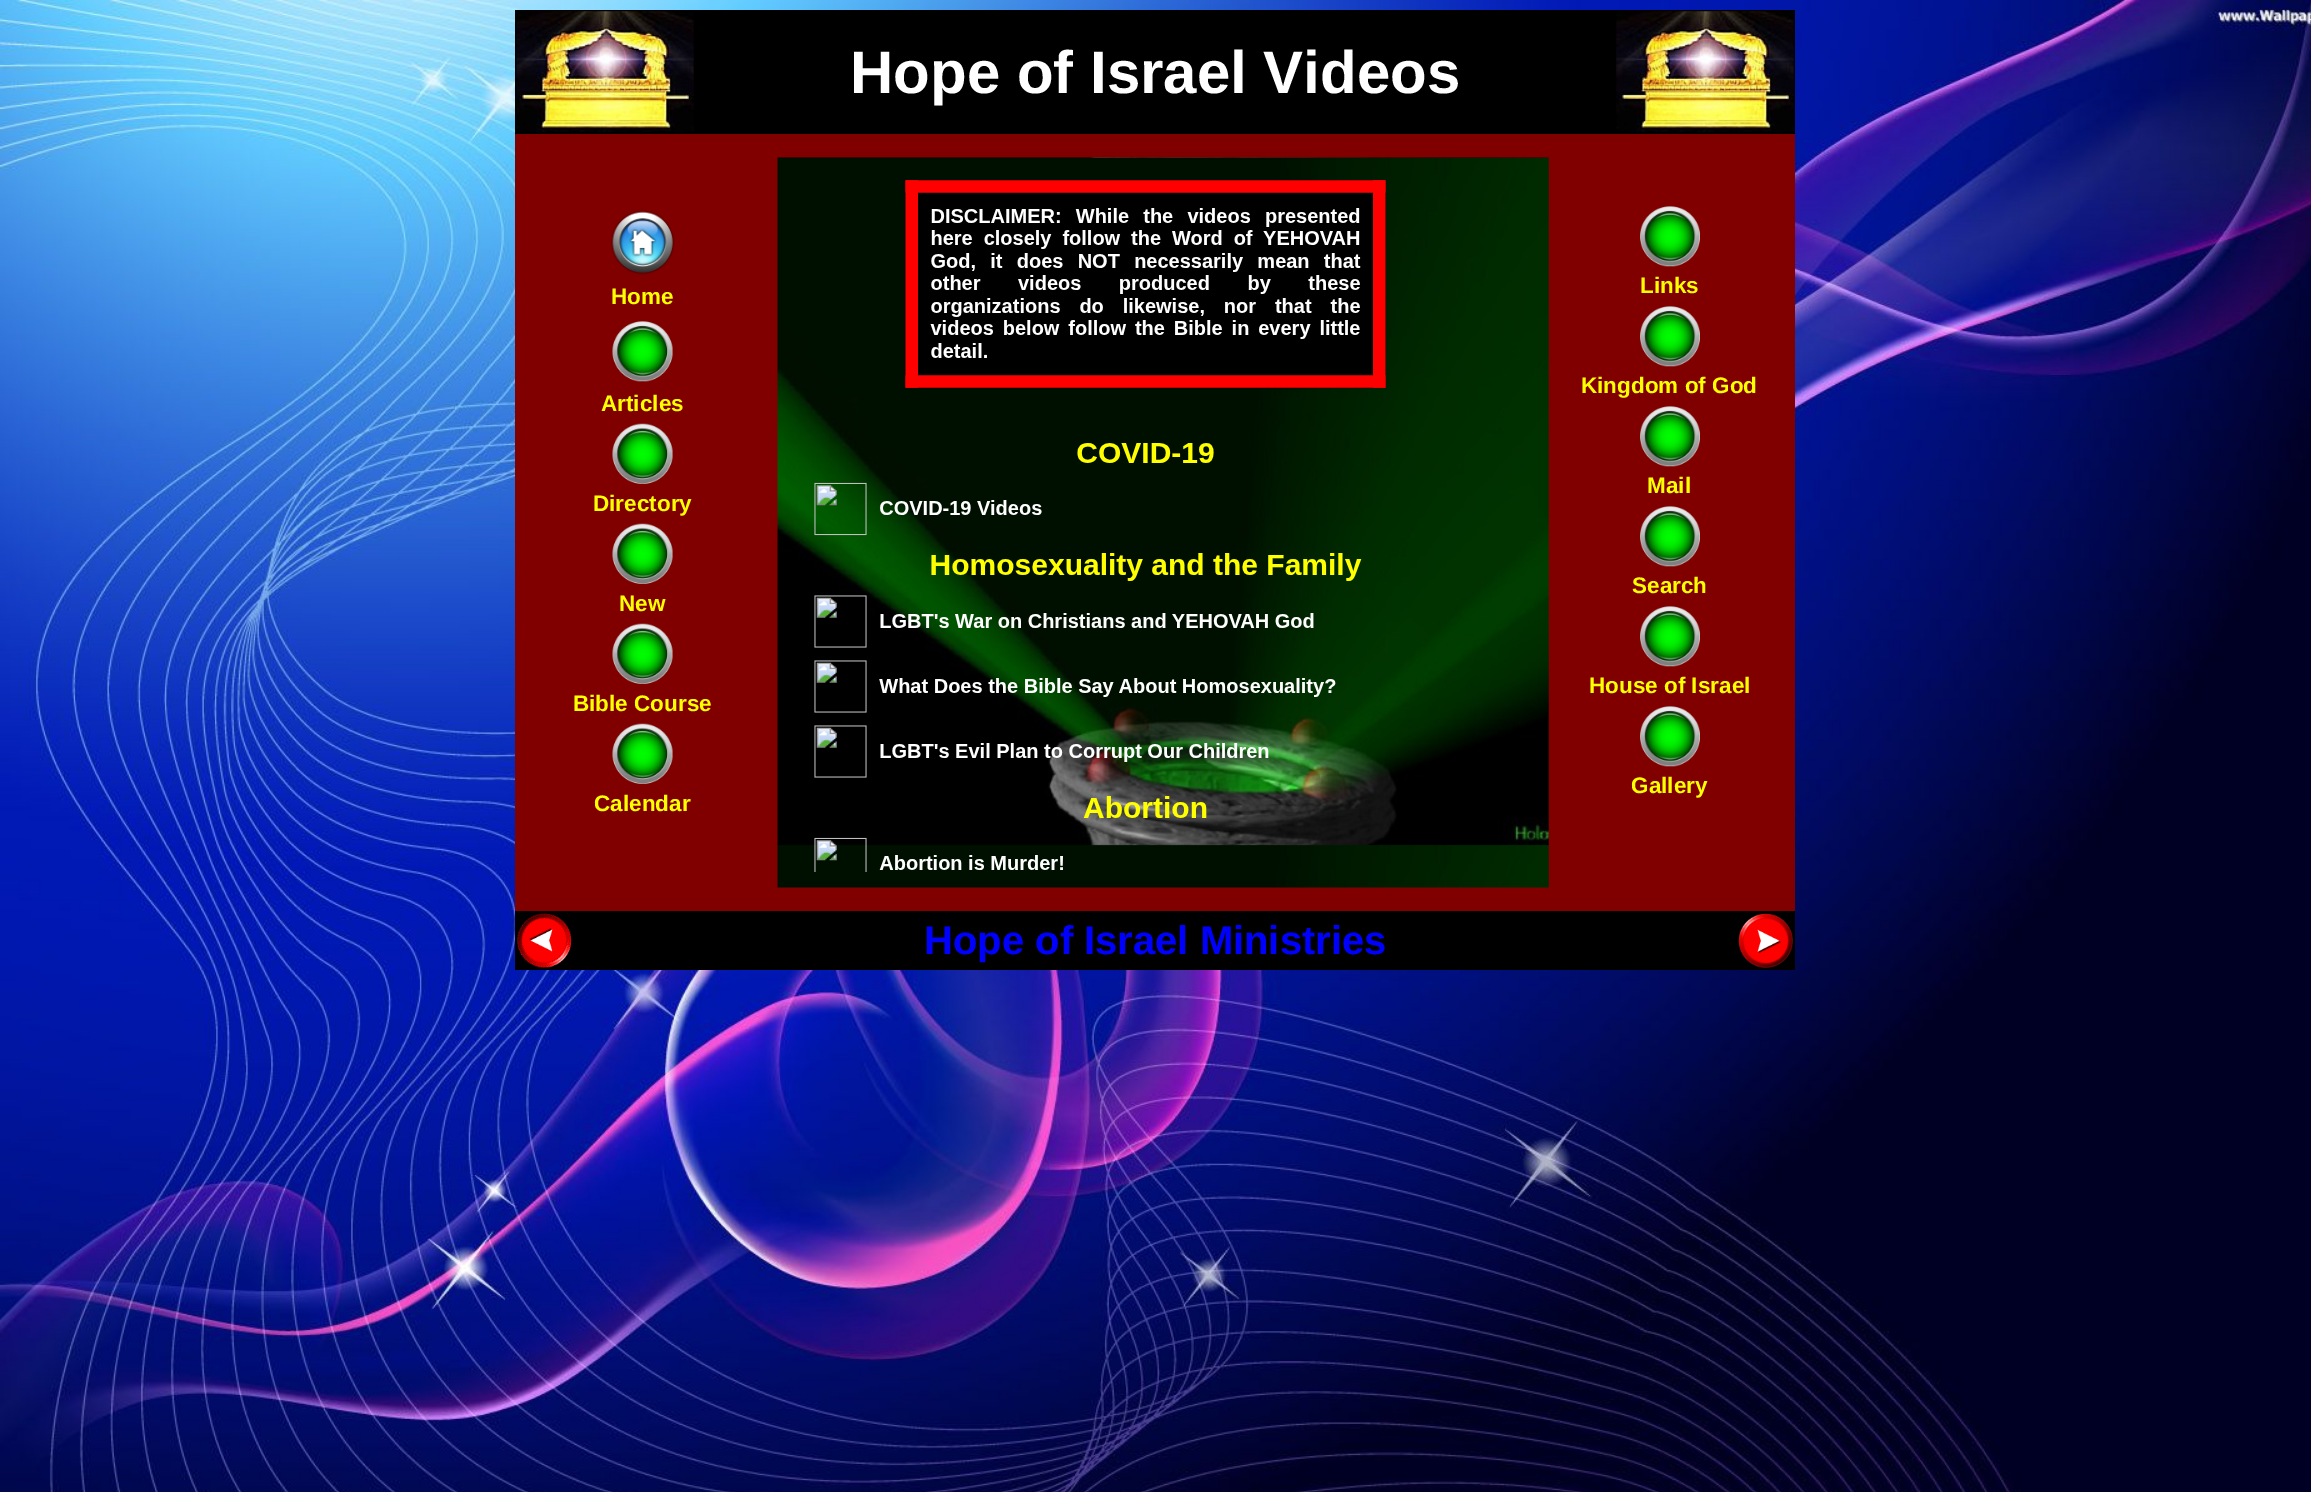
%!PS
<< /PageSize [2311 1492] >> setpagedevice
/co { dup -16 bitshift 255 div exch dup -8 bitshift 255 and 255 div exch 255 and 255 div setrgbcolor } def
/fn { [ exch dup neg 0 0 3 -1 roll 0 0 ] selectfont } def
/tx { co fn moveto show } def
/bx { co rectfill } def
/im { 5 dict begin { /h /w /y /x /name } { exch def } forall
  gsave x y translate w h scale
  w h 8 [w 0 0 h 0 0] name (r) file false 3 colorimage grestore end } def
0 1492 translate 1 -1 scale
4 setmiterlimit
0 0 2311 1492 16#FFFFFF bx
(media/1.raw) 0 0 2311 1492 im
515 134 1280 777 16#800000 bx
(media/2.raw) 777 157 772 731 im
(media/3.raw) 611 210 64 65 im
(media/4.raw) 612 321 61 61 im
(media/5.raw) 612 423 61 61 im
(media/5.raw) 612 523 61 61 im
(media/5.raw) 612 623 61 61 im
(media/5.raw) 612 723 61 61 im
(media/6.raw) 814 180 572 692 im
515 10 1280 124 16#000000 bx
(media/7.raw) 516 11 178 122 im
(media/7.raw) 1616 11 178 122 im
515 911 1280 59 16#000000 bx
(media/8.raw) 517 913 55 55 im
(media/9.raw) 1738 913 55 55 im
(media/10.raw) 1640 206 60 61 im
(media/10.raw) 1640 306 60 61 im
(media/10.raw) 1640 406 60 61 im
(media/10.raw) 1640 506 60 61 im
(media/10.raw) 1640 606 60 61 im
(media/10.raw) 1640 706 60 61 im
(Home) 611 304 /LiberationSans-Bold 22.5 16#FFFF00 tx
(Articles) 601 411 /LiberationSans-Bold 22.5 16#FFFF00 tx
(Directory) 593 511 /LiberationSans-Bold 22.5 16#FFFF00 tx
(New) 619 611 /LiberationSans-Bold 22.5 16#FFFF00 tx
(Bible Course) 573 711 /LiberationSans-Bold 22.5 16#FFFF00 tx
(Calendar) 594 811 /LiberationSans-Bold 22.5 16#FFFF00 tx
(Hope of Israel Videos) 850 93 /LiberationSans-Bold 60 16#FFFFFF tx
(Hope of Israel Ministries) 924 954 /LiberationSans-Bold 40 16#0000FF tx
(Links) 1640 293 /LiberationSans-Bold 22.5 16#FFFF00 tx
(Kingdom of God) 1581 393 /LiberationSans-Bold 22.5 16#FFFF00 tx
(Mail) 1647 493 /LiberationSans-Bold 22.5 16#FFFF00 tx
(Search) 1632 593 /LiberationSans-Bold 22.5 16#FFFF00 tx
(House of Israel) 1589 693 /LiberationSans-Bold 22.5 16#FFFF00 tx
(Gallery) 1631 793 /LiberationSans-Bold 22.5 16#FFFF00 tx
showpage
